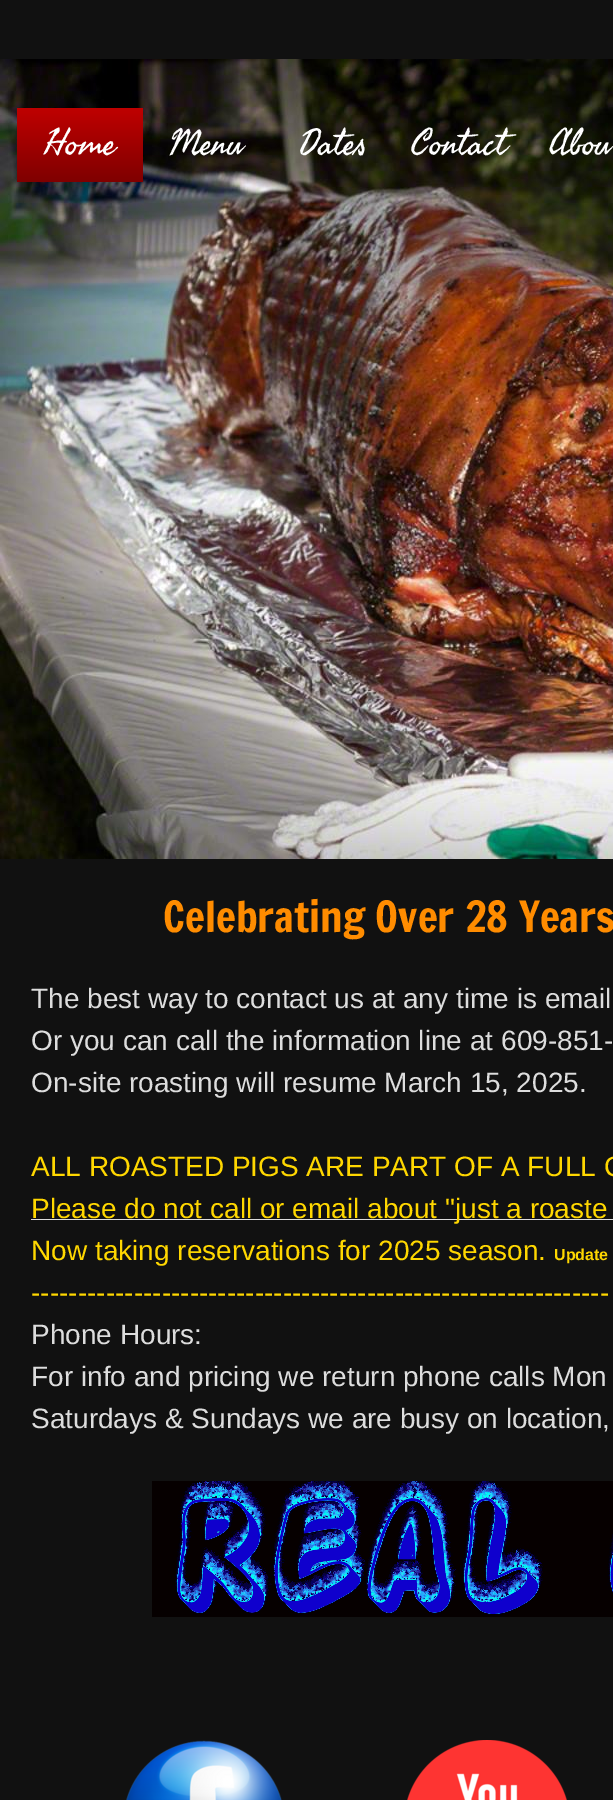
%!PS
<< /PageSize [613 1800] >> setpagedevice
/mt/moveto load def
/li/lineto load def
/cp/closepath load def
/gs/gsave load def
/gr/grestore load def
/co { dup -16 bitshift 255 div exch dup -8 bitshift 255 and 255 div exch 255 and 255 div setrgbcolor } def
/fn { [ exch dup neg 0 0 3 -1 roll 0 0 ] selectfont } def
/tx { co fn moveto show } def
/bx { co rectfill } def
/im { 5 dict begin { /h /w /y /x /name } { exch def } forall
  gsave x y translate w h scale
  w h 8 [w 0 0 h 0 0] name (r) file false 3 colorimage grestore end } def
0 1800 translate 1 -1 scale
4 setmiterlimit
0 0 613 1800 16#111111 bx
(media/1.raw) 0 59 613 800 im
gs 17 108 mt 143 108 li 143 182 li 17 182 li cp clip newpath
<< /ShadingType 2 /ColorSpace /DeviceRGB /Coords [80 108 80 182] /Extend [true true] /Function << /FunctionType 2 /Domain [0 1] /C0 [.749 0 0] /C1 [.498 0 0] /N 1 >> >> shfill gr
31 1219 582 1 16#DDDDDD bx
(media/2.raw) 152 1481 461 136 im
(media/3.raw) 126 1740 156 60 im
(media/4.raw) 407 1740 160 60 im
(Home) 44 154 /SeaweedScript-Regular 36 16#FFFFFF tx
(Menu) 169 154 /SeaweedScript-Regular 36 16#FFFFFF tx
(Dates) 299 154 /SeaweedScript-Regular 36 16#FFFFFF tx
(Contact) 411 154 /SeaweedScript-Regular 36 16#FFFFFF tx
(Abou) 549 154 /SeaweedScript-Regular 36 16#FFFFFF tx
(Celebrating Over 28 Years) 163 932 /FrancoisOne-Regular 42 16#FF8C00 tx
(The best way to contact us at any time is email) 31 1008 /LiberationSans-Regular 28 16#DDDDDD tx
(Or you can call the information line at 609-851-) 31 1050 /LiberationSans-Regular 28 16#DDDDDD tx
(On-site roasting will resume March 15, 2025.) 31 1092 /LiberationSans-Regular 28 16#DDDDDD tx
(ALL ROASTED PIGS ARE PART OF A FULL C) 31 1176 /LiberationSans-Regular 28 16#FFD700 tx
(Please do not call or email about "just a roaste) 31 1218 /LiberationSans-Regular 28 16#FFD700 tx
(Now taking reservations for 2025 season.) 31 1260 /LiberationSans-Regular 28 16#FFD700 tx
(Update) 554 1260 /LiberationSans-Bold 16 16#FFD700 tx
(--------------------------------------------------------------) 31 1302 /LiberationSans-Regular 28 16#FFD700 tx
(Phone Hours:) 31 1344 /LiberationSans-Regular 28 16#DDDDDD tx
(For info and pricing we return phone calls Mon) 31 1386 /LiberationSans-Regular 28 16#DDDDDD tx
(Saturdays & Sundays we are busy on location,) 31 1428 /LiberationSans-Regular 28 16#DDDDDD tx
showpage
